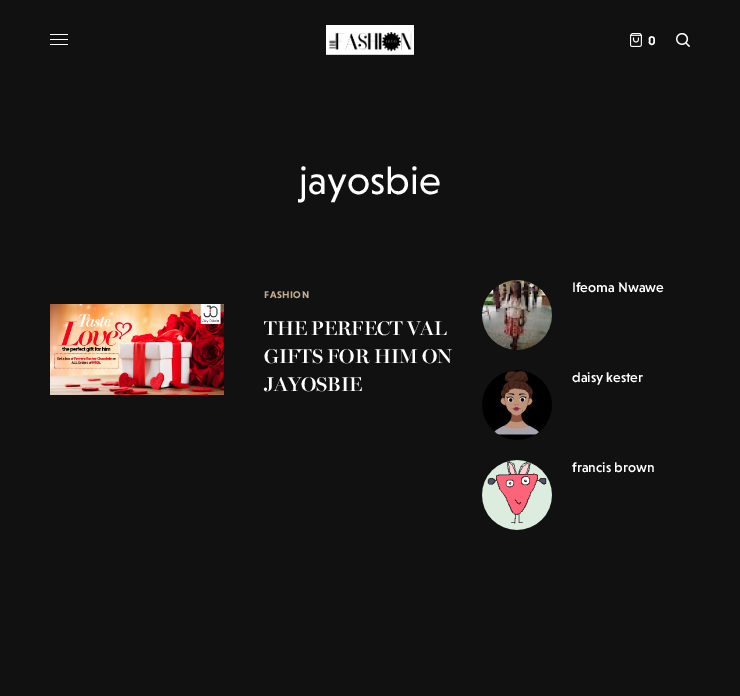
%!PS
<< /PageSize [740 696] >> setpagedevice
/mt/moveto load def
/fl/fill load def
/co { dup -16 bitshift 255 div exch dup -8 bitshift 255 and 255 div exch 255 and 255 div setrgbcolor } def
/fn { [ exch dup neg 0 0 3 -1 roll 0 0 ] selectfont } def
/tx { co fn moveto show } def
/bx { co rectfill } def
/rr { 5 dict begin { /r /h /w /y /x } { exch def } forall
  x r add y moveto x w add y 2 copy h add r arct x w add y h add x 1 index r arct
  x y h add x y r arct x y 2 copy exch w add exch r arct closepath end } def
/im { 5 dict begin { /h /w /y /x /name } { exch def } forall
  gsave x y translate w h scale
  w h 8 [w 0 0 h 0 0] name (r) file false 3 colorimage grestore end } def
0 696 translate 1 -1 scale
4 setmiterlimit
0 0 740 696 16#111111 bx
16#FFFFFF co
50 34 18 1 .5 rr fl
50 39 18 1 .5 rr fl
50 44 18 1 .5 rr fl
(media/1.raw) 326 25 88 30 im
(media/2.raw) 630 33 12 14 im
(media/3.raw) 676 33 14 14 im
(media/4.raw) 50 304 174 91 im
(media/5.raw) 482 280 70 70 im
(media/6.raw) 482 370 70 70 im
(media/7.raw) 482 460 70 70 im
(0) 648 45 /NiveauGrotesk-Bold 13 16#FFFFFF tx
(jayosbie) 299 194 /NiveauGrotesk-Regular 40 16#FFFFFF tx
/NiveauGrotesk-Bold 10 fn
16#C5AD90 co
264 298 mt .5 0 (FASHION) ashow
(THE PERFECT VAL) 264 335 /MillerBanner-SemiBold 20 16#FFFFFF tx
(GIFTS FOR HIM ON) 264 363 /MillerBanner-SemiBold 20 16#FFFFFF tx
(JAYOSBIE) 264 391 /MillerBanner-SemiBold 20 16#FFFFFF tx
(Ifeoma Nwawe) 572 292 /NiveauGrotesk-Medium 14 16#FFFFFF tx
(daisy kester) 572 382 /NiveauGrotesk-Medium 14 16#FFFFFF tx
(francis brown) 572 472 /NiveauGrotesk-Medium 14 16#FFFFFF tx
showpage
